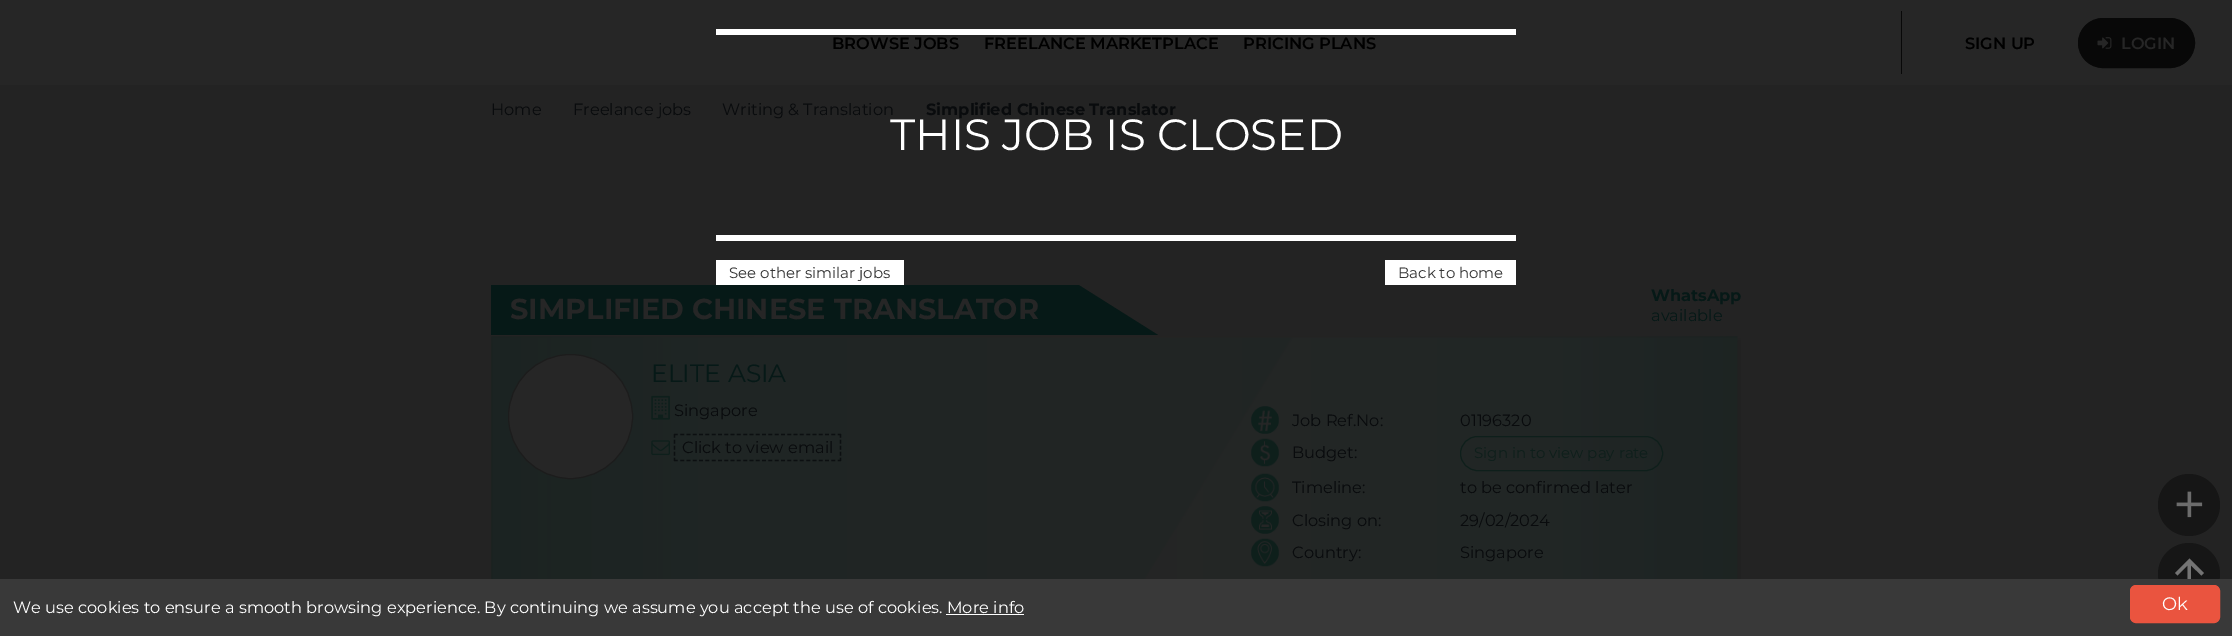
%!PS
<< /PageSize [2232 636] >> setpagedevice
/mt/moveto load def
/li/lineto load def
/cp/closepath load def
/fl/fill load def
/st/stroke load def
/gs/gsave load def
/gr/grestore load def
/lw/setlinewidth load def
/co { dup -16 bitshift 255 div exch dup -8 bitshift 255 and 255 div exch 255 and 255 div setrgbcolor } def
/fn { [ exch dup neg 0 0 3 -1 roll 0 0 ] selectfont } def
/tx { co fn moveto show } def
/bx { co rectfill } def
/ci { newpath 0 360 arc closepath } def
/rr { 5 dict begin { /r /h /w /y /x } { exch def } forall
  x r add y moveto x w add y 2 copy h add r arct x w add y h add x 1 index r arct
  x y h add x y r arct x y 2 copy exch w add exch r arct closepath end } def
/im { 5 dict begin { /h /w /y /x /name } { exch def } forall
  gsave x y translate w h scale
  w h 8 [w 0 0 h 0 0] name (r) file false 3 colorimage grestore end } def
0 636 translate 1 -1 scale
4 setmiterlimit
0 0 2232 636 16#262626 bx
1901 11 1 63 16#080808 bx
2078.5 18.5 116 49 24.5 rr gs fl gr
st
(media/1.raw) 2097 37 15 12 im
0 85 2232 494 16#232323 bx
491 285 567 50 16#061917 bx
gs
491 285 1250 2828 rectclip
1158 335 mt 1058 335 li 1058 272 li cp fl
gr
(media/2.raw) 491 336 1250 243 im
16#262626 co
570.5 416.5 62 ci gs fl gr
16#1C1C1C co
st
(media/3.raw) 651 395 19 25 im
(media/4.raw) 651 440 19 16 im
16#0C0F11 co
1.2 lw
[3.75 2.55] 0 setdash
674 434.5 mt 841 434.5 li st
[3.75 2.19] 0 setdash
840.5 434 mt 840.5 461 li st
[3.75 2.55] 0 setdash
674 460.5 mt 841 460.5 li st
[3.75 2.19] 0 setdash
674.5 434 mt 674.5 461 li st
(media/5.raw) 1251 406 28 28 im
(media/6.raw) 1251 438 28 29 im
16#0E1F1B co
1 lw
[] 0 setdash
1460.5 436.5 202 34 17 rr st
(media/7.raw) 1251 473 28 29 im
(media/8.raw) 1251 506 28 28 im
(media/9.raw) 1251 538 28 29 im
716 29 800 6 16#FFFFFF bx
716 235 800 6 16#FFFFFF bx
716 260 188 25 16#FFFFFF bx
1385 260 131 25 16#FFFFFF bx
16#161616 co
2189 505 31 ci fl
(media/10.raw) 2176 491 27 27 im
2189 574 31 ci fl
16#747474 co
2175 573 mt 2189.5 558.5 li 2204 573 li 2201.5 575.5 li 2191 565.5 li 2191 587.5 li 2187.5 587.5 li 2187.5 565.5 li 2177.5 575.5 li cp fl
0 579 2232 57 16#393939 bx
946 614 78 1 16#FFFFFF bx
16#EA543F co
2130.5 585.5 89 37 5.5 rr gs fl gr
st
(BROWSE JOBS) 832 49 /Montserrat-SemiBold 16.25 16#000000 tx
(FREELANCE MARKETPLACE) 984 49 /Montserrat-SemiBold 16.25 16#000000 tx
(PRICING PLANS) 1243 49 /Montserrat-SemiBold 16.25 16#000000 tx
(SIGN UP) 1965 49 /Montserrat-SemiBold 16.25 16#000000 tx
(LOGIN) 2121 49 /Montserrat-SemiBold 16.25 16#262626 tx
(Home) 491 115 /Montserrat-Regular 16.25 16#090B0D tx
(Freelance jobs) 573 115 /Montserrat-Regular 16.25 16#090B0D tx
(Writing & Translation) 722 115 /Montserrat-Regular 16.25 16#090B0D tx
(Simplified Chinese Translator) 926 115 /Montserrat-Bold 16.25 16#090B0D tx
(SIMPLIFIED CHINESE TRANSLATOR) 510 319 /Montserrat-Bold 28.75 16#262626 tx
(WhatsApp) 1651 301 /Montserrat-Bold 16.25 16#061917 tx
(available) 1651 321 /Montserrat-Regular 16.25 16#061917 tx
(ELITE ASIA) 651 382 /Montserrat-Regular 25 16#061917 tx
(Singapore) 674 416 /Montserrat-Regular 16.25 16#090B0D tx
(Click to view email) 682 453 /Montserrat-Regular 16.25 16#090B0D tx
(Job Ref.No:) 1292 426 /Montserrat-Regular 16.25 16#090B0D tx
(01196320) 1460 426 /Montserrat-Regular 16.25 16#090B0D tx
(Budget:) 1292 458 /Montserrat-Regular 16.25 16#090B0D tx
(Sign in to view pay rate) 1474 458 /Montserrat-Regular 15 16#0E1F1B tx
(Timeline:) 1292 493 /Montserrat-Regular 16.25 16#090B0D tx
(to be confirmed later) 1460 493 /Montserrat-Regular 16.25 16#090B0D tx
(Closing on:) 1292 526 /Montserrat-Regular 16.25 16#090B0D tx
(29/02/2024) 1460 526 /Montserrat-Regular 16.25 16#090B0D tx
(Country:) 1292 558 /Montserrat-Regular 16.25 16#090B0D tx
(Singapore) 1460 558 /Montserrat-Regular 16.25 16#090B0D tx
(THIS JOB IS CLOSED) 890 150 /Montserrat-Regular 43.75 16#FFFFFF tx
(See other similar jobs) 729 278 /Montserrat-Regular 15 16#333333 tx
(Back to home) 1398 278 /Montserrat-Regular 15 16#333333 tx
(We use cookies to ensure a smooth browsing experience. By continuing we assume you accept the use of cookies. More info) 13 613 /Montserrat-Regular 16.25 16#FFFFFF tx
(Ok) 2162 610 /Montserrat-Regular 18 16#FFFFFF tx
showpage
